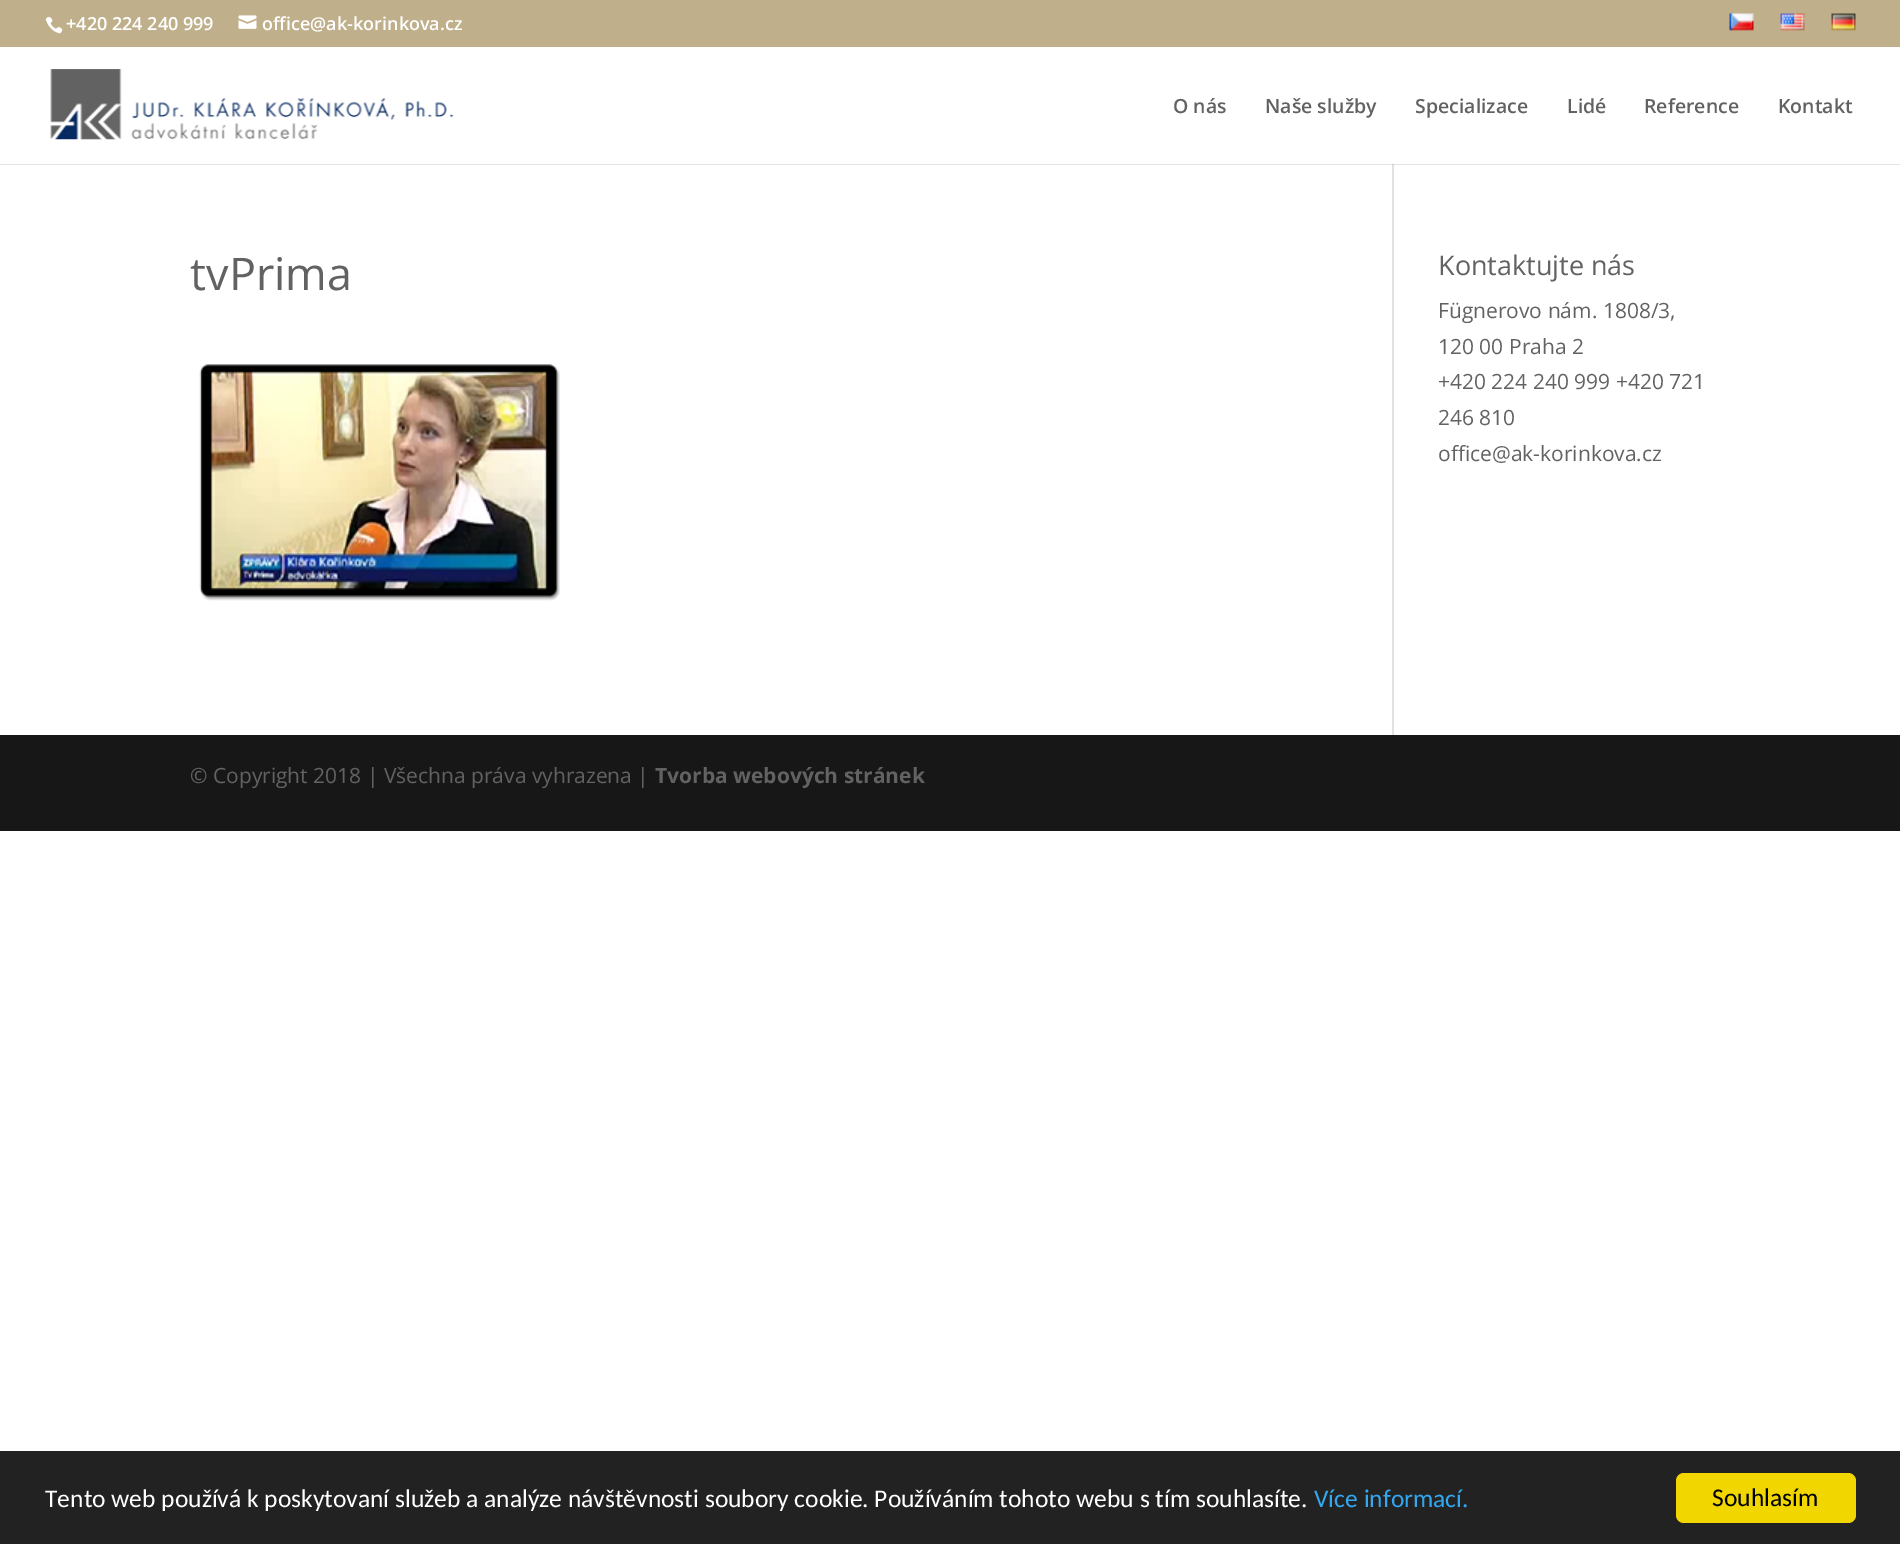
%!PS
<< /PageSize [1900 1544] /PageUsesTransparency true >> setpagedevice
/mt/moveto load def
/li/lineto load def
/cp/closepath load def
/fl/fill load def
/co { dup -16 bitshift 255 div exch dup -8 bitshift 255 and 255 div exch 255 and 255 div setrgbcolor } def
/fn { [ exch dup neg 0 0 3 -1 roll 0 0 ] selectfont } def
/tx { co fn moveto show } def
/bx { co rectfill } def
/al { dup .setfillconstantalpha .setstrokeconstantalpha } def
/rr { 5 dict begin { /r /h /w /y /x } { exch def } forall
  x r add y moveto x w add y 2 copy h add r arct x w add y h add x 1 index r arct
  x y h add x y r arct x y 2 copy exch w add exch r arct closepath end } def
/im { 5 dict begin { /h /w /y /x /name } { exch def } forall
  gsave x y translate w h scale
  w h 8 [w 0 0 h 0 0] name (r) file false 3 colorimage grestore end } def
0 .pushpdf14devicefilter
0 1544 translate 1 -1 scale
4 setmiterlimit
0 0 1900 1544 16#FFFFFF bx
0 0 1900 47 16#BFAF8B bx
(media/1.raw) 45 16 18 18 im
(media/2.raw) 238 15 19 14 im
(media/3.raw) 1729 13 25 18 im
(media/4.raw) 1780 13 25 18 im
(media/5.raw) 1831 13 25 18 im
1392 164 2 571 16#E2E2E2 bx
0.1 al
16#000000 co
0 164 mt 0 165 li 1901 165 li 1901 48 li 1900 48 li 1900 164 li cp fl
1 al
(media/6.raw) 50 69 404 71 im
(media/7.raw) 199 364 361 237 im
0 735 1900 96 16#171717 bx
0 1451 1900 93 16#222222 bx
16#F1D600 co
1676 1473 180 50 8 rr fl
(+420 224 240 999) 66 30 /OpenSans-SemiBold 18 16#FFFFFF tx
(office@ak-korinkova.cz) 262 30 /OpenSans-SemiBold 18 16#FFFFFF tx
(O nás) 1173 113 /OpenSans-SemiBold 19.5 16#626262 tx
(Naše služby) 1265 113 /OpenSans-SemiBold 19.5 16#626262 tx
(Specializace) 1415 113 /OpenSans-SemiBold 19.5 16#626262 tx
(Lidé) 1567 113 /OpenSans-SemiBold 19.5 16#626262 tx
(Reference) 1644 113 /OpenSans-SemiBold 19.5 16#626262 tx
(Kontakt) 1778 113 /OpenSans-SemiBold 19.5 16#626262 tx
(tvPrima) 190 290 /OpenSans-Regular 45 16#626262 tx
(Kontaktujte nás) 1438 275 /OpenSans-Regular 27 16#626262 tx
(Fügnerovo nám. 1808/3,) 1438 318 /OpenSans-Regular 21 16#626262 tx
(120 00 Praha 2) 1438 354 /OpenSans-Regular 21 16#626262 tx
(+420 224 240 999 +420 721) 1438 389 /OpenSans-Regular 21 16#626262 tx
(246 810) 1438 425 /OpenSans-Regular 21 16#626262 tx
(office@ak-korinkova.cz) 1438 461 /OpenSans-Regular 21 16#626262 tx
(© Copyright 2018 | Všechna práva vyhrazena |) 190 783 /OpenSans-Regular 21 16#626262 tx
(Tvorba webových stránek) 655 783 /OpenSans-Bold 21 16#626262 tx
(Tento web používá k poskytovaní služeb a analýze návštěvnosti soubory cookie. Používáním tohoto webu s tím souhlasíte.) 45 1507 /Carlito-Regular 25.5 16#FFFFFF tx
(Více informací.) 1314 1507 /Carlito-Regular 25.5 16#31A8F0 tx
(Souhlasím) 1712 1506 /Carlito-Regular 25.5 16#000000 tx
.poppdf14devicefilter showpage
